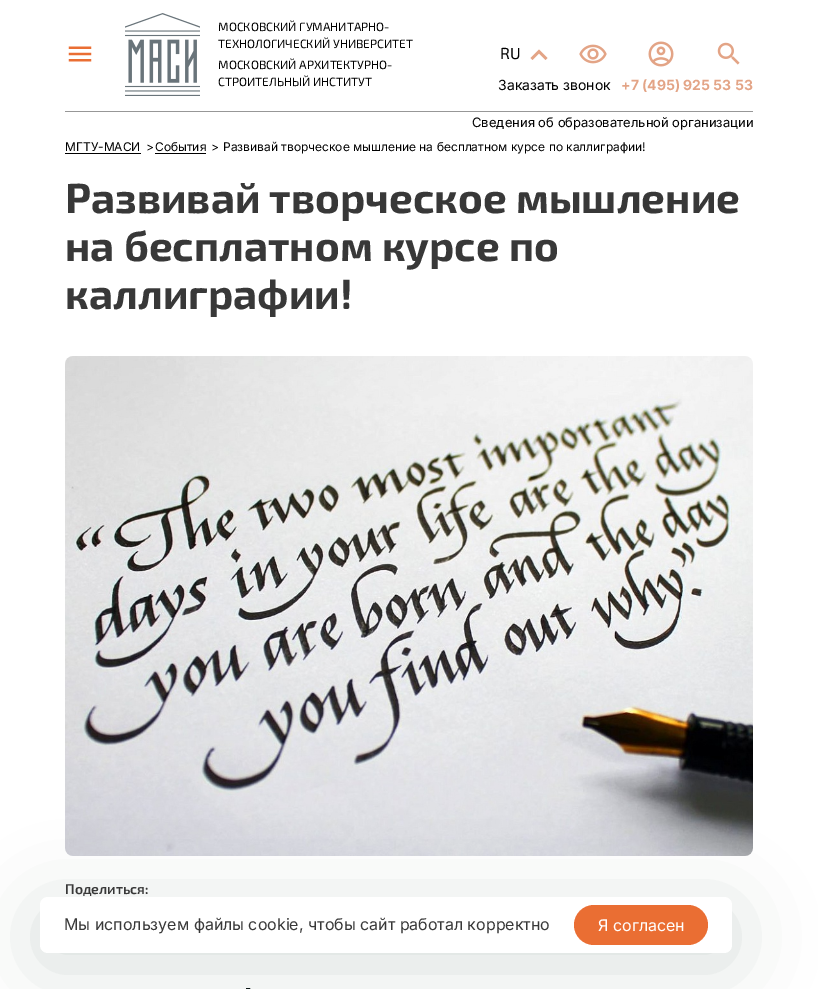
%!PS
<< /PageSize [818 989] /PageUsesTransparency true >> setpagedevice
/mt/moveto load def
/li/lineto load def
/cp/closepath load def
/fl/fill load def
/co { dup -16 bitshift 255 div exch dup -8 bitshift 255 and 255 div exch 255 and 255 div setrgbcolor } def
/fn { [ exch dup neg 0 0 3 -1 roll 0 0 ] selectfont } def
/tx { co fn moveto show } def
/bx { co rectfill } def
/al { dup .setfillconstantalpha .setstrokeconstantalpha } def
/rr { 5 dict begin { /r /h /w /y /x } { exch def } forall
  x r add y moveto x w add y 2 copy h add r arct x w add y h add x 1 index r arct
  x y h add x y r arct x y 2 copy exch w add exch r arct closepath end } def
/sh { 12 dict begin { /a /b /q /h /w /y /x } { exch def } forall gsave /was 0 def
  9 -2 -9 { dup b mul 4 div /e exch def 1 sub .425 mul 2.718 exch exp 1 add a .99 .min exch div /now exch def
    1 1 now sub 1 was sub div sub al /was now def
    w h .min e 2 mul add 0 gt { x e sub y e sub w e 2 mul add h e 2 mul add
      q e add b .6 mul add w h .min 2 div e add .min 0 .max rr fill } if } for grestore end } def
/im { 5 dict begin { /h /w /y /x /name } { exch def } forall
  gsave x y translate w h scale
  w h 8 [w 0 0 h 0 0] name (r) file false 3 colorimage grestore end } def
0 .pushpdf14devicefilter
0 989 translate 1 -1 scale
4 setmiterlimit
0 0 818 989 16#FFFFFF bx
65 111 688 1 16#979797 bx
(media/1.raw) 68 46 24 16 im
(media/2.raw) 125 13 75 83 im
16#E3A486 co
539 53.5 mt 532.5 60 li 530.5 58 li 539 49.5 li 547.5 58 li 545.5 60 li cp fl
(media/3.raw) 579 44 28 20 im
(media/4.raw) 648 41 26 26 im
(media/5.raw) 717 42 23 23 im
65 153 76 1 16#000000 bx
155 153 51 1 16#000000 bx
(media/6.raw) 65 356 688 500 im
16#0F3A21 co
40 909 692 56 8 40 .16 sh
16#FFFFFF co
40 897 692 56 8 rr fl
16#EA6E33 co
574 905 134 40 20 rr fl
(МОСКОВСКИЙ ГУМАНИТАРНО-) 218 31 /Exo2-Regular 12 16#000000 tx
(ТЕХНОЛОГИЧЕСКИЙ УНИВЕРСИТЕТ) 218 48 /Exo2-Regular 12 16#000000 tx
(МОСКОВСКИЙ АРХИТЕКТУРНО-) 218 69 /Exo2-Regular 12 16#000000 tx
(СТРОИТЕЛЬНЫЙ ИНСТИТУТ) 218 86 /Exo2-Regular 12 16#000000 tx
(RU) 500 59 /Exo2-Regular 16 16#000000 tx
(Заказать звонок) 498 90 /Inter-Regular 14 16#000000 tx
(+7 \(495\) 925 53 53) 621 90 /Inter-Bold 14 16#E3A486 tx
(Сведения об образовательной организации) 472 127 /Inter-Regular 13 16#000000 tx
(МГТУ-МАСИ) 65 151 /Inter-Regular 12 16#000000 tx
(>) 146 151 /Inter-Regular 12 16#000000 tx
(События) 155 151 /Inter-Regular 12 16#000000 tx
(>) 211 151 /Inter-Regular 12 16#000000 tx
(Развивай творческое мышление на бесплатном курсе по каллиграфии!) 223 151 /Inter-Regular 12 16#000000 tx
(Развивай творческое мышление) 65 213 /Exo2-Bold 42 16#383838 tx
(на бесплатном курсе по) 65 261 /Exo2-Bold 42 16#383838 tx
(каллиграфии!) 65 309 /Exo2-Bold 42 16#383838 tx
(Поделиться:) 65 894 /Exo2-SemiBold 14 16#383838 tx
(-) 245 992 /Exo2-Regular 14 16#091514 tx
(Мы используем файлы cookie, чтобы сайт работал корректно) 64 930 /Inter-Regular 16 16#383838 tx
(Я согласен) 598 931 /Inter-Regular 16 16#FFFFFF tx
.poppdf14devicefilter showpage
